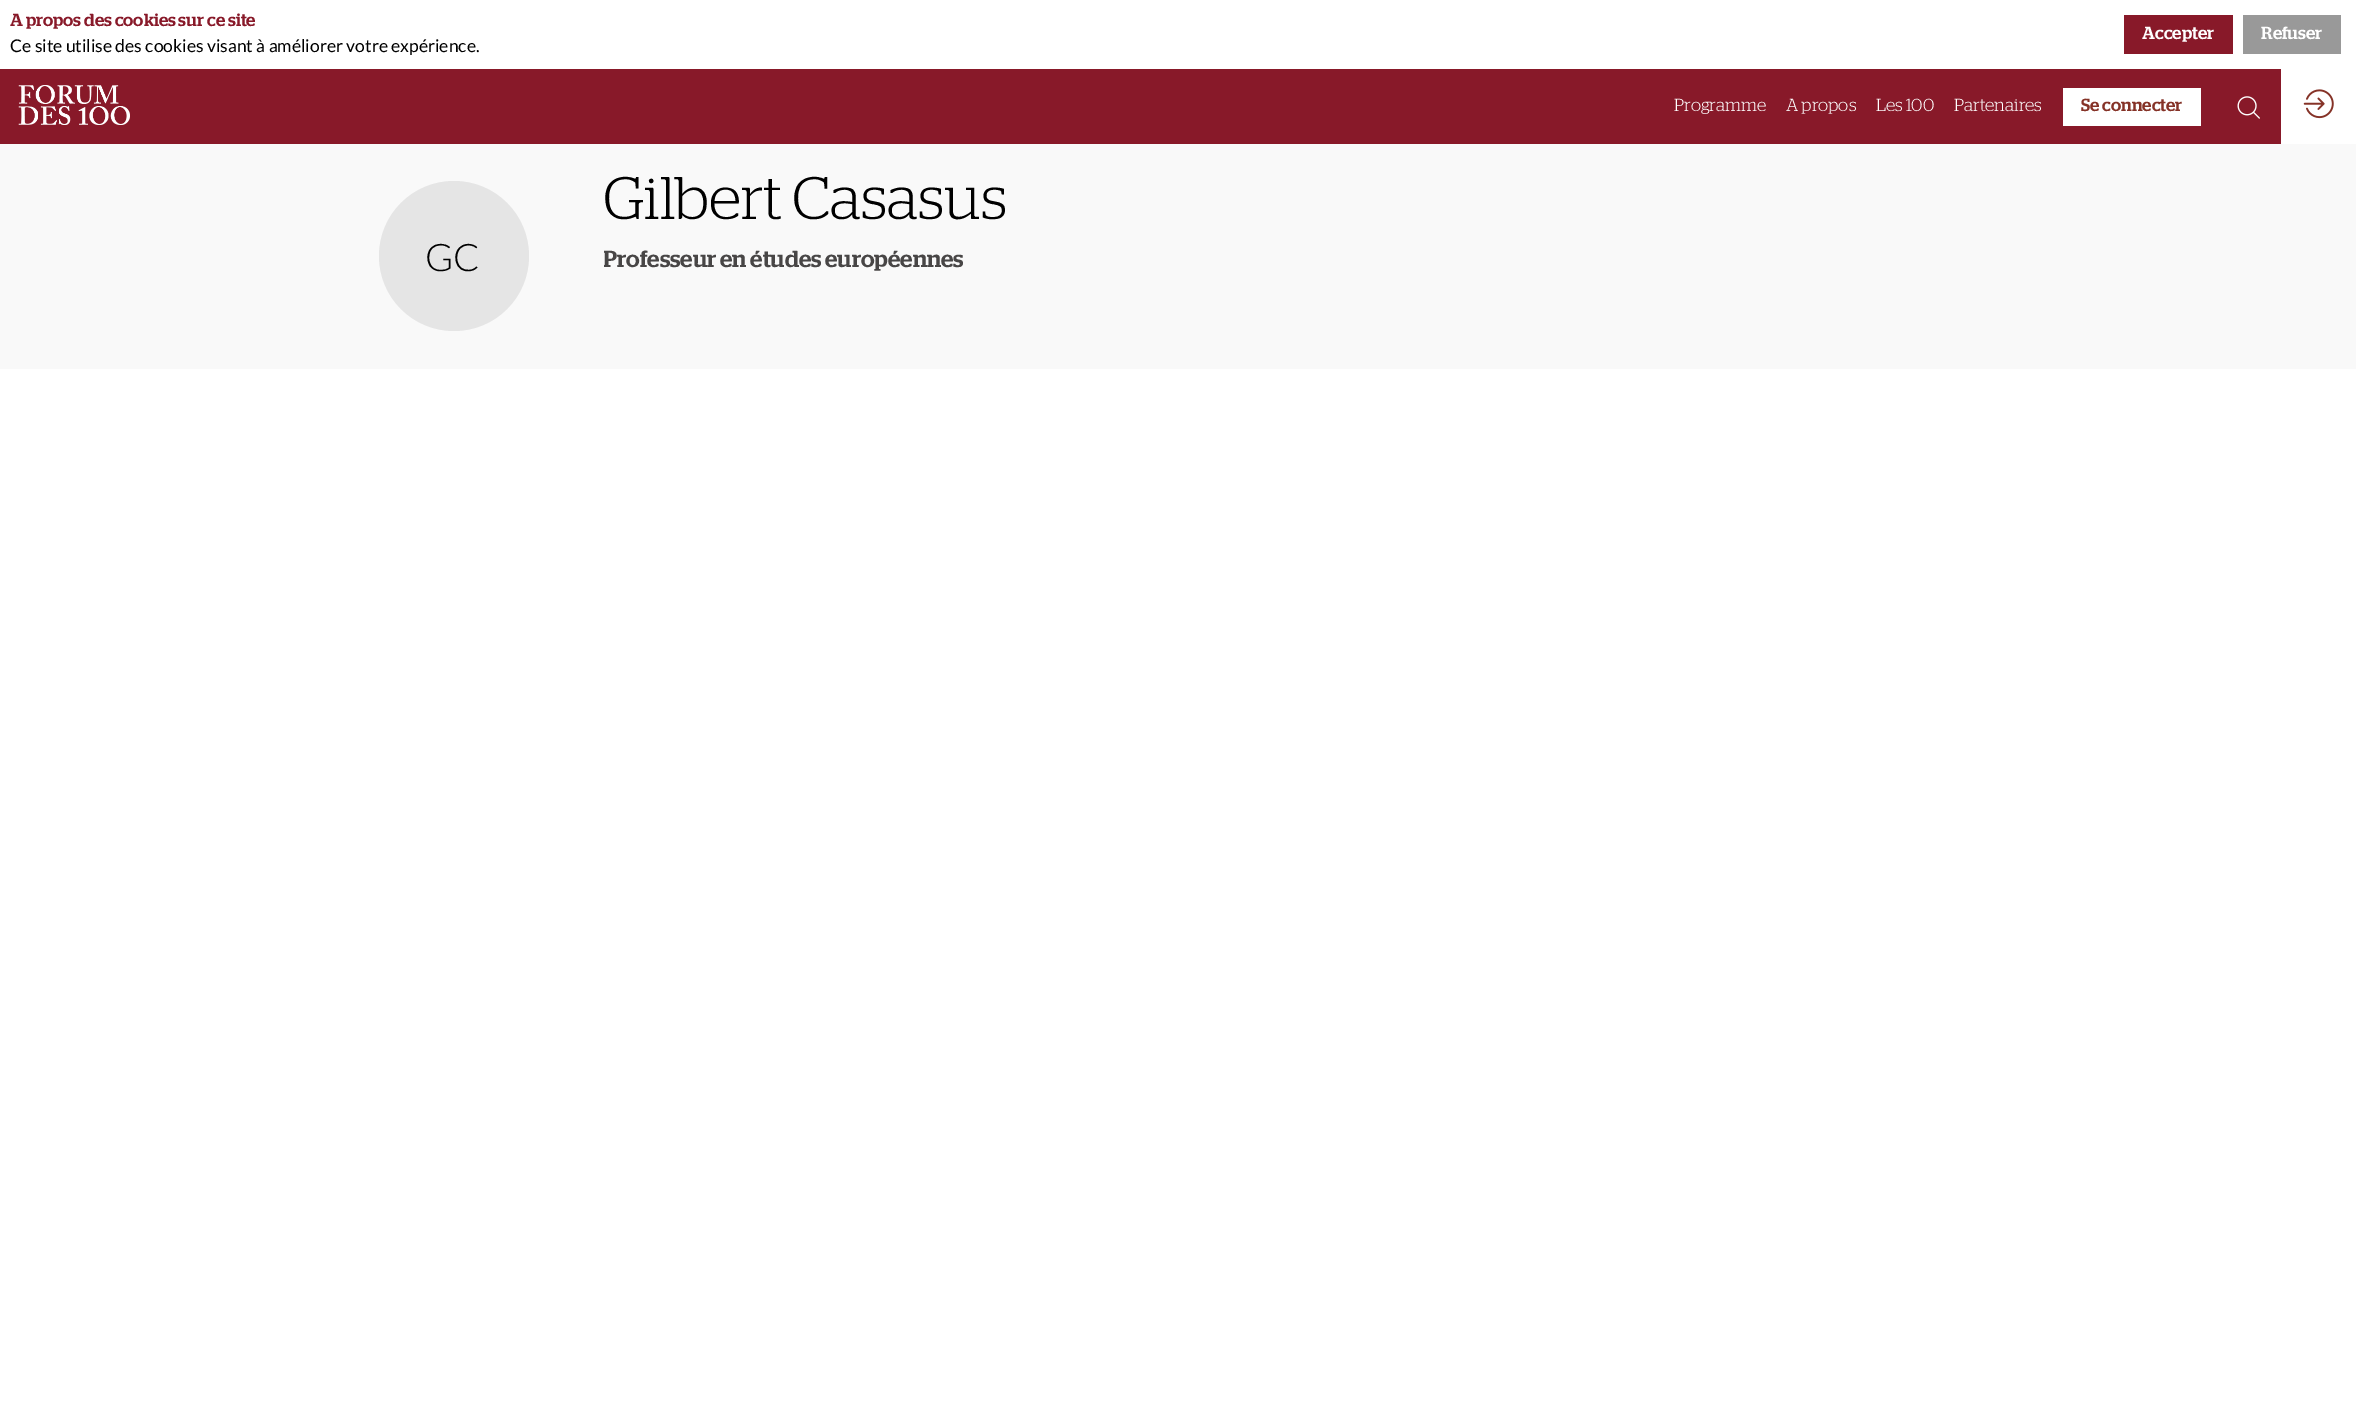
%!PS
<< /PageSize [2356 1406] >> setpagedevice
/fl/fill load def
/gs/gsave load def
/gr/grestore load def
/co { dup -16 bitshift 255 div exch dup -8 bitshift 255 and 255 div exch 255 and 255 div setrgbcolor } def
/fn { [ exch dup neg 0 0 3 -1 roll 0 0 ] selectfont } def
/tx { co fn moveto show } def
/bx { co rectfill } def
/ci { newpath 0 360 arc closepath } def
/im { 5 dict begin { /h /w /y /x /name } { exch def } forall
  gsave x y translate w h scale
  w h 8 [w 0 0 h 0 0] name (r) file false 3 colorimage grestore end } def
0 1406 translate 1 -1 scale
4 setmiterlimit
0 0 2356 1406 16#FFFFFF bx
2124 15 109 39 16#881929 bx
2243 15 98 39 16#999999 bx
0 69 2281 75 16#881929 bx
(media/1.raw) 18 85 112 40 im
2063 88 138 38 16#FFFFFF bx
(media/2.raw) 2237 96 23 23 im
(media/3.raw) 2303 89 31 30 im
0 144 2356 225 16#F9F9F9 bx
16#E5E5E5 co
454 256 75 ci fl
(A propos des cookies sur ce site) 10 26 /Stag-Medium 17.5 16#881929 tx
(Ce site utilise des cookies visant à améliorer votre expérience.) 10 52 /Lato-Regular 17.5 16#000000 tx
(Accepter) 2142 39 /Stag-Medium 17.5 16#FFFFFF tx
(Refuser) 2261 39 /Stag-Medium 17.5 16#FFFFFF tx
(Programme) 1674 111 /Stag-Light 17.5 16#FFFFFF tx
(A propos) 1786 111 /Stag-Light 17.5 16#FFFFFF tx
(Les 100) 1876 111 /Stag-Light 17.5 16#FFFFFF tx
(Partenaires) 1954 111 /Stag-Light 17.5 16#FFFFFF tx
(Se connecter) 2081 111 /Stag-Medium 17.5 16#853227 tx
(GC) 425 271 /Lato-Light 38 16#000000 tx
(Gilbert Casasus) 603 219 /Stag-Light 60 16#000000 tx
gs
604 169 1375 119 rectclip
(Professeur en études européennes) 603 267 /Stag-Medium 23.3 16#484646 tx
gr
showpage
